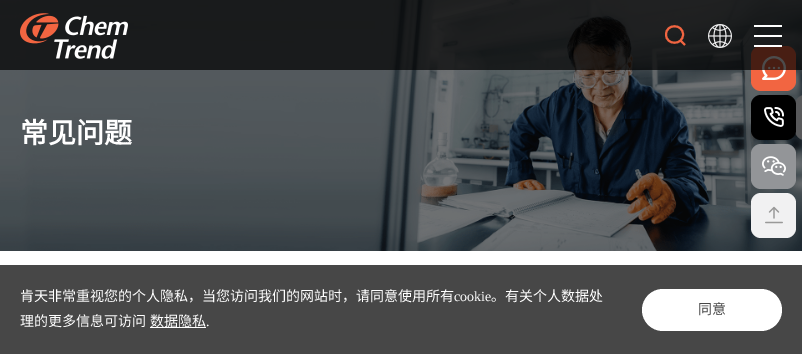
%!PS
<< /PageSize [802 354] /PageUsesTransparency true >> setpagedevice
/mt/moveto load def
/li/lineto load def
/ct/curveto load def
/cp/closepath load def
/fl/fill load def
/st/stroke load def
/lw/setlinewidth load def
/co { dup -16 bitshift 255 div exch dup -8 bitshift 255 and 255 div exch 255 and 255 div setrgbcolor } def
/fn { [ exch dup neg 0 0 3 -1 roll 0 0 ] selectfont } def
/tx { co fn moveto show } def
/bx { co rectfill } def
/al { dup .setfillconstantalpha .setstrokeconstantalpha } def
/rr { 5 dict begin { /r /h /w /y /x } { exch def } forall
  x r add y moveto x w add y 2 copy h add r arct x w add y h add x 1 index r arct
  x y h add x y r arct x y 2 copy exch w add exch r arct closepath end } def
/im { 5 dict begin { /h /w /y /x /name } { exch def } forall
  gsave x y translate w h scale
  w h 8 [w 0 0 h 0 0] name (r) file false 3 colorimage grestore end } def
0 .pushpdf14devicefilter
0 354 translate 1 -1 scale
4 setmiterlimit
0 0 802 354 16#FFFFFF bx
(media/3.raw) 0 0 802 251 im
16#F26541 co
751 46 45 45 10 rr fl
(media/4.raw) 762 56 24 24 im
0.7 al
0 0 802 70 16#000000 bx
1 al
(media/1.raw) 20 13 108 46 im
16#F26541 co
2 lw
1 setlinecap
685 45 mt 680.5 40.5 li cp 683 34.5 mt 683 45.5 666 45.5 666 34.5 ct 666 23.5 683 23.5 683 34.5 ct cp st
(media/2.raw) 708 24 24 24 im
754 25 28 2 16#FFFFFF bx
754 35 28 2 16#FFFFFF bx
754 45 28 2 16#FFFFFF bx
0 265 802 89 16#474747 bx
150 327 56 1 16#FFFFFF bx
642 289 140 42 21 rr fl
16#58595B co
795 95 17 45 10 rr fl
16#000000 co
751 95 45 45 10 rr fl
(media/5.raw) 764 107 20 20 im
16#939598 co
751 144 45 45 10 rr fl
(media/6.raw) 762 156 24 20 im
16#F1F1F2 co
751 193 45 45 10 rr fl
(media/7.raw) 765 206 18 18 im
(常见问题) 20 143 /NotoSansCJKSC-Bold 28 16#FFFFFF tx
(肯天非常重视您的个人隐私，当您访问我们的网站时，请同意使用所有) 20 301 /NotoSansCJKSC-Regular 14 16#FFFFFF tx
(cookie) 454 301 /LiberationSerif-Regular 14 16#FFFFFF tx
(。有关个人数据处) 491 301 /NotoSansCJKSC-Regular 14 16#FFFFFF tx
(理的更多信息可访问) 20 326 /NotoSansCJKSC-Regular 14 16#FFFFFF tx
(数据隐私) 150 326 /NotoSansCJKSC-Regular 14 16#FFFFFF tx
(.) 206 326 /LiberationSerif-Regular 14 16#FFFFFF tx
(同意) 698 314 /NotoSansCJKSC-Regular 14 16#474747 tx
.poppdf14devicefilter showpage
